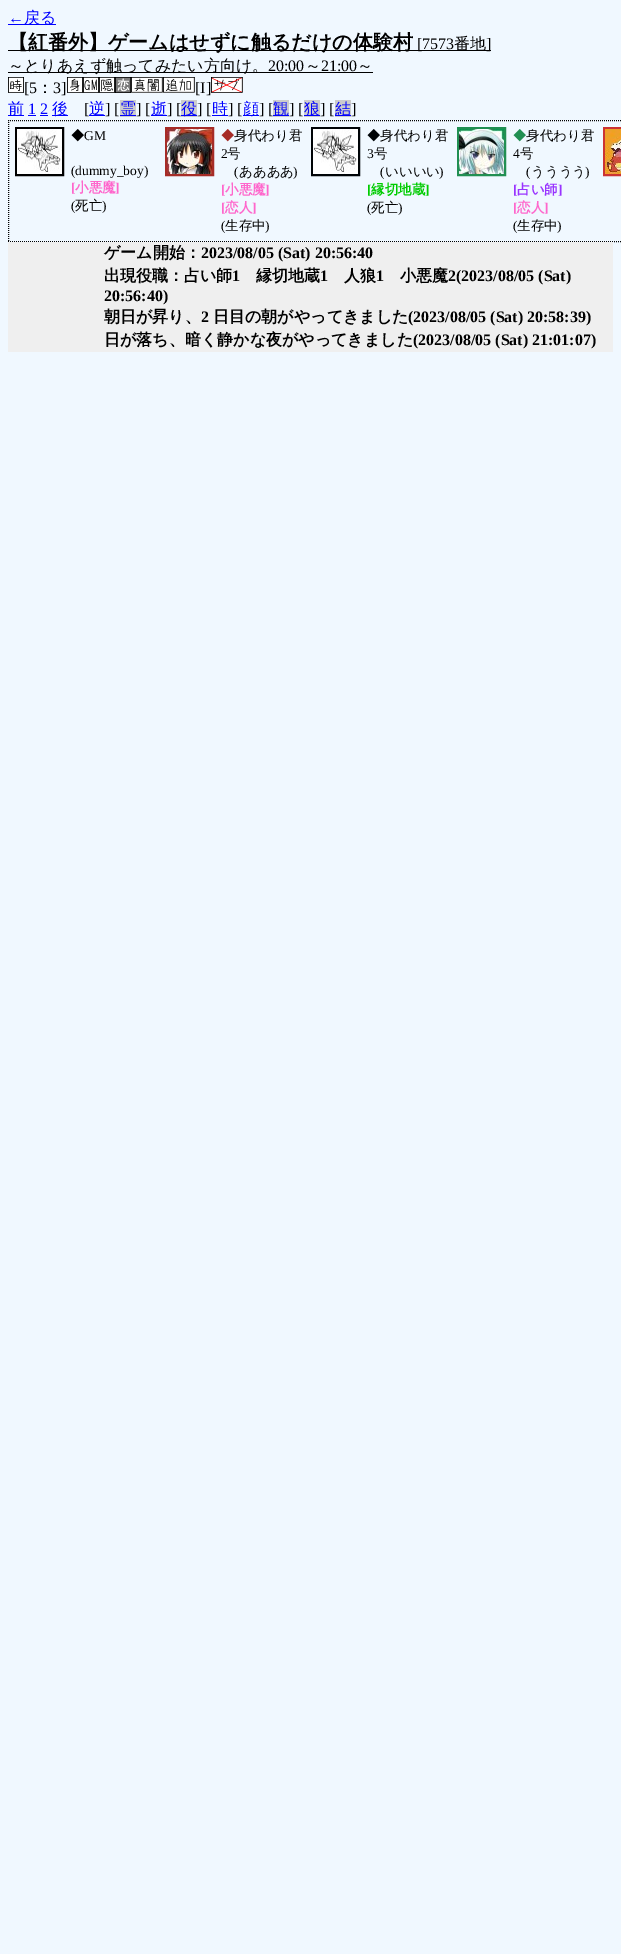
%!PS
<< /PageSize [621 1954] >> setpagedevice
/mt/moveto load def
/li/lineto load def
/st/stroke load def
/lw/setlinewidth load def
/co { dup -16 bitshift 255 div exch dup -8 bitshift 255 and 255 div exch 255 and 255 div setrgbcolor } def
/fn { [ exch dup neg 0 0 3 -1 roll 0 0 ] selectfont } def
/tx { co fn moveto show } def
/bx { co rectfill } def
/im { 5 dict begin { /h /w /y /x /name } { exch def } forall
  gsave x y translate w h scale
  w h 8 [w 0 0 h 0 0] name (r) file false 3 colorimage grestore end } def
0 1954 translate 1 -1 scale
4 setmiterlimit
0 0 621 1954 16#F0F8FF bx
8 24 48 1 16#0000FF bx
8 50 483 1 16#000000 bx
8 72 365 1 16#000000 bx
(media/1.raw) 8 77 16 16 im
(media/2.raw) 67 77 16 16 im
(media/3.raw) 83 77 16 16 im
(media/4.raw) 99 77 16 16 im
(media/5.raw) 115 77 16 16 im
(media/6.raw) 131 77 32 16 im
(media/7.raw) 163 77 32 16 im
(media/8.raw) 211 77 32 16 im
8 115 16 1 16#0000FF bx
28 115 8 1 16#0000FF bx
52 115 16 1 16#0000FF bx
89 115 16 1 16#0000FF bx
120 100 16 17 16#CCCCCC bx
120 115 16 1 16#0000FF bx
151 115 16 1 16#0000FF bx
181 100 16 17 16#CCCCCC bx
181 115 16 1 16#0000FF bx
212 115 16 1 16#0000FF bx
243 115 16 1 16#0000FF bx
273 100 16 17 16#CCCCCC bx
273 115 16 1 16#0000FF bx
304 100 16 17 16#CCCCCC bx
304 115 16 1 16#0000FF bx
335 100 16 17 16#CCCCCC bx
335 115 16 1 16#0000FF bx
40 115 8 1 16#0000FF bx
16#000000 co
[1 1] 0 setdash
8 120.5 mt 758 120.5 li st
8 241.5 mt 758 241.5 li st
8.5 120 mt 8.5 242 li st
2 lw
[] 0 setdash
16 128 47 47 rectstroke
(media/9.raw) 17 129 45 45 im
16#A62C27 co
166 128 47 47 rectstroke
(media/10.raw) 167 129 45 45 im
16#000407 co
312 128 47 47 rectstroke
(media/9.raw) 313 129 45 45 im
16#218F52 co
458 128 47 47 rectstroke
(media/11.raw) 459 129 45 45 im
16#CC3333 co
604 128 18 47 rectstroke
(media/12.raw) 605 129 16 45 im
8 242 605 110 16#EFEFEF bx
(←) 8 23 /LiberationSerif-Regular 16 16#0000FF tx
(戻る) 24 23 /WenQuanYiZenHei-Medium 16 16#0000FF tx
(【紅番外】ゲームはせずに触るだけの体験村) 8 49 /WenQuanYiZenHei-Bold 20 16#000000 tx
([7573) 417 49 /LiberationSerif-Regular 16 16#000000 tx
(番地) 454 49 /WenQuanYiZenHei-Medium 16 16#000000 tx
(]) 486 49 /LiberationSerif-Regular 16 16#000000 tx
(～とりあえず触ってみたい方向け。) 8 71 /WenQuanYiZenHei-Medium 16 16#000000 tx
(20:00) 268 71 /LiberationSerif-Regular 16 16#000000 tx
(～) 305 71 /WenQuanYiZenHei-Medium 16 16#000000 tx
(21:00) 321 71 /LiberationSerif-Regular 16 16#000000 tx
(～) 357 71 /WenQuanYiZenHei-Medium 16 16#000000 tx
([5) 24 93 /LiberationSerif-Regular 16 16#000000 tx
(：) 37 93 /WenQuanYiZenHei-Medium 16 16#000000 tx
(3]) 53 93 /LiberationSerif-Regular 16 16#000000 tx
([I]) 195 93 /LiberationSerif-Regular 16 16#000000 tx
(前) 8 114 /WenQuanYiZenHei-Medium 16 16#0000FF tx
(1 2) 28 114 /LiberationSerif-Regular 16 16#0000FF tx
(後) 52 114 /WenQuanYiZenHei-Medium 16 16#0000FF tx
([) 84 114 /LiberationSerif-Regular 16 16#000000 tx
(逆) 89 114 /WenQuanYiZenHei-Medium 16 16#0000FF tx
(] [) 105 114 /LiberationSerif-Regular 16 16#000000 tx
(霊) 120 114 /WenQuanYiZenHei-Medium 16 16#0000FF tx
(] [) 136 114 /LiberationSerif-Regular 16 16#000000 tx
(逝) 151 114 /WenQuanYiZenHei-Medium 16 16#0000FF tx
(] [) 167 114 /LiberationSerif-Regular 16 16#000000 tx
(役) 181 114 /WenQuanYiZenHei-Medium 16 16#0000FF tx
(] [) 197 114 /LiberationSerif-Regular 16 16#000000 tx
(時) 212 114 /WenQuanYiZenHei-Medium 16 16#0000FF tx
(] [) 228 114 /LiberationSerif-Regular 16 16#000000 tx
(顔) 243 114 /WenQuanYiZenHei-Medium 16 16#0000FF tx
(] [) 259 114 /LiberationSerif-Regular 16 16#000000 tx
(観) 273 114 /WenQuanYiZenHei-Medium 16 16#0000FF tx
(] [) 289 114 /LiberationSerif-Regular 16 16#000000 tx
(狼) 304 114 /WenQuanYiZenHei-Medium 16 16#0000FF tx
(] [) 320 114 /LiberationSerif-Regular 16 16#000000 tx
(結) 335 114 /WenQuanYiZenHei-Medium 16 16#0000FF tx
(]) 351 114 /LiberationSerif-Regular 16 16#000000 tx
(◆) 71 140 /WenQuanYiZenHei-Medium 13.5 16#000000 tx
(GM) 84 140 /LiberationSerif-Regular 13.5 16#000000 tx
(\(dummy_boy\)) 71 175 /LiberationSerif-Regular 13.5 16#000000 tx
([) 71 192 /LiberationSerif-Bold 13.5 16#FF66CC tx
(小悪魔) 75 192 /WenQuanYiZenHei-Bold 13.5 16#FF66CC tx
(]) 115 192 /LiberationSerif-Bold 13.5 16#FF66CC tx
(\() 71 210 /LiberationSerif-Regular 13.5 16#000000 tx
(死亡) 75 210 /WenQuanYiZenHei-Medium 13.5 16#000000 tx
(\)) 102 210 /LiberationSerif-Regular 13.5 16#000000 tx
(◆) 221 140 /WenQuanYiZenHei-Medium 13.5 16#A62C27 tx
(身代わり君) 234 140 /WenQuanYiZenHei-Medium 13.5 16#000000 tx
(2) 221 158 /LiberationSerif-Regular 13.5 16#000000 tx
(号) 227 158 /WenQuanYiZenHei-Medium 13.5 16#000000 tx
(\() 234 176 /LiberationSerif-Regular 13.5 16#000000 tx
(ああああ) 239 176 /WenQuanYiZenHei-Medium 13.5 16#000000 tx
(\)) 293 176 /LiberationSerif-Regular 13.5 16#000000 tx
([) 221 194 /LiberationSerif-Bold 13.5 16#FF66CC tx
(小悪魔) 225 194 /WenQuanYiZenHei-Bold 13.5 16#FF66CC tx
(]) 265 194 /LiberationSerif-Bold 13.5 16#FF66CC tx
([) 221 212 /LiberationSerif-Bold 13.5 16#FF66CC tx
(恋人) 225 212 /WenQuanYiZenHei-Bold 13.5 16#FF66CC tx
(]) 252 212 /LiberationSerif-Bold 13.5 16#FF66CC tx
(\() 221 230 /LiberationSerif-Regular 13.5 16#000000 tx
(生存中) 225 230 /WenQuanYiZenHei-Medium 13.5 16#000000 tx
(\)) 265 230 /LiberationSerif-Regular 13.5 16#000000 tx
(◆) 367 140 /WenQuanYiZenHei-Medium 13.5 16#000407 tx
(身代わり君) 380 140 /WenQuanYiZenHei-Medium 13.5 16#000000 tx
(3) 367 158 /LiberationSerif-Regular 13.5 16#000000 tx
(号) 374 158 /WenQuanYiZenHei-Medium 13.5 16#000000 tx
(\() 380 176 /LiberationSerif-Regular 13.5 16#000000 tx
(いいいい) 385 176 /WenQuanYiZenHei-Medium 13.5 16#000000 tx
(\)) 439 176 /LiberationSerif-Regular 13.5 16#000000 tx
([) 367 194 /LiberationSerif-Bold 13.5 16#00CC00 tx
(縁切地蔵) 371 194 /WenQuanYiZenHei-Bold 13.5 16#00CC00 tx
(]) 425 194 /LiberationSerif-Bold 13.5 16#00CC00 tx
(\() 367 212 /LiberationSerif-Regular 13.5 16#000000 tx
(死亡) 371 212 /WenQuanYiZenHei-Medium 13.5 16#000000 tx
(\)) 398 212 /LiberationSerif-Regular 13.5 16#000000 tx
(◆) 513 140 /WenQuanYiZenHei-Medium 13.5 16#218F52 tx
(身代わり君) 526 140 /WenQuanYiZenHei-Medium 13.5 16#000000 tx
(4) 513 158 /LiberationSerif-Regular 13.5 16#000000 tx
(号) 520 158 /WenQuanYiZenHei-Medium 13.5 16#000000 tx
(\() 526 176 /LiberationSerif-Regular 13.5 16#000000 tx
(うううう) 531 176 /WenQuanYiZenHei-Medium 13.5 16#000000 tx
(\)) 585 176 /LiberationSerif-Regular 13.5 16#000000 tx
([) 513 194 /LiberationSerif-Bold 13.5 16#9933FF tx
(占い師) 517 194 /WenQuanYiZenHei-Bold 13.5 16#9933FF tx
(]) 558 194 /LiberationSerif-Bold 13.5 16#9933FF tx
([) 513 212 /LiberationSerif-Bold 13.5 16#FF66CC tx
(恋人) 517 212 /WenQuanYiZenHei-Bold 13.5 16#FF66CC tx
(]) 544 212 /LiberationSerif-Bold 13.5 16#FF66CC tx
(\() 513 230 /LiberationSerif-Regular 13.5 16#000000 tx
(生存中) 517 230 /WenQuanYiZenHei-Medium 13.5 16#000000 tx
(\)) 557 230 /LiberationSerif-Regular 13.5 16#000000 tx
(ゲーム開始：) 104 258 /WenQuanYiZenHei-Bold 16 16#000000 tx
(2023/08/05 \(Sat\) 20:56:40) 201 258 /LiberationSerif-Bold 16 16#000000 tx
(出現役職：占い師) 104 281 /WenQuanYiZenHei-Bold 16 16#000000 tx
(1) 232 281 /LiberationSerif-Bold 16 16#000000 tx
(縁切地蔵) 256 281 /WenQuanYiZenHei-Bold 16 16#000000 tx
(1) 320 281 /LiberationSerif-Bold 16 16#000000 tx
(人狼) 344 281 /WenQuanYiZenHei-Bold 16 16#000000 tx
(1) 376 281 /LiberationSerif-Bold 16 16#000000 tx
(小悪魔) 400 281 /WenQuanYiZenHei-Bold 16 16#000000 tx
(2\(2023/08/05 \(Sat\)) 448 281 /LiberationSerif-Bold 16 16#000000 tx
(20:56:40\)) 104 301 /LiberationSerif-Bold 16 16#000000 tx
(朝日が昇り、) 104 322 /WenQuanYiZenHei-Bold 16 16#000000 tx
(2) 201 322 /LiberationSerif-Bold 16 16#000000 tx
(日目の朝がやってきました) 213 322 /WenQuanYiZenHei-Bold 16 16#000000 tx
(\(2023/08/05 \(Sat\) 20:58:39\)) 408 322 /LiberationSerif-Bold 16 16#000000 tx
(日が落ち、暗く静かな夜がやってきました) 104 345 /WenQuanYiZenHei-Bold 16 16#000000 tx
(\(2023/08/05 \(Sat\) 21:01:07\)) 413 345 /LiberationSerif-Bold 16 16#000000 tx
showpage
